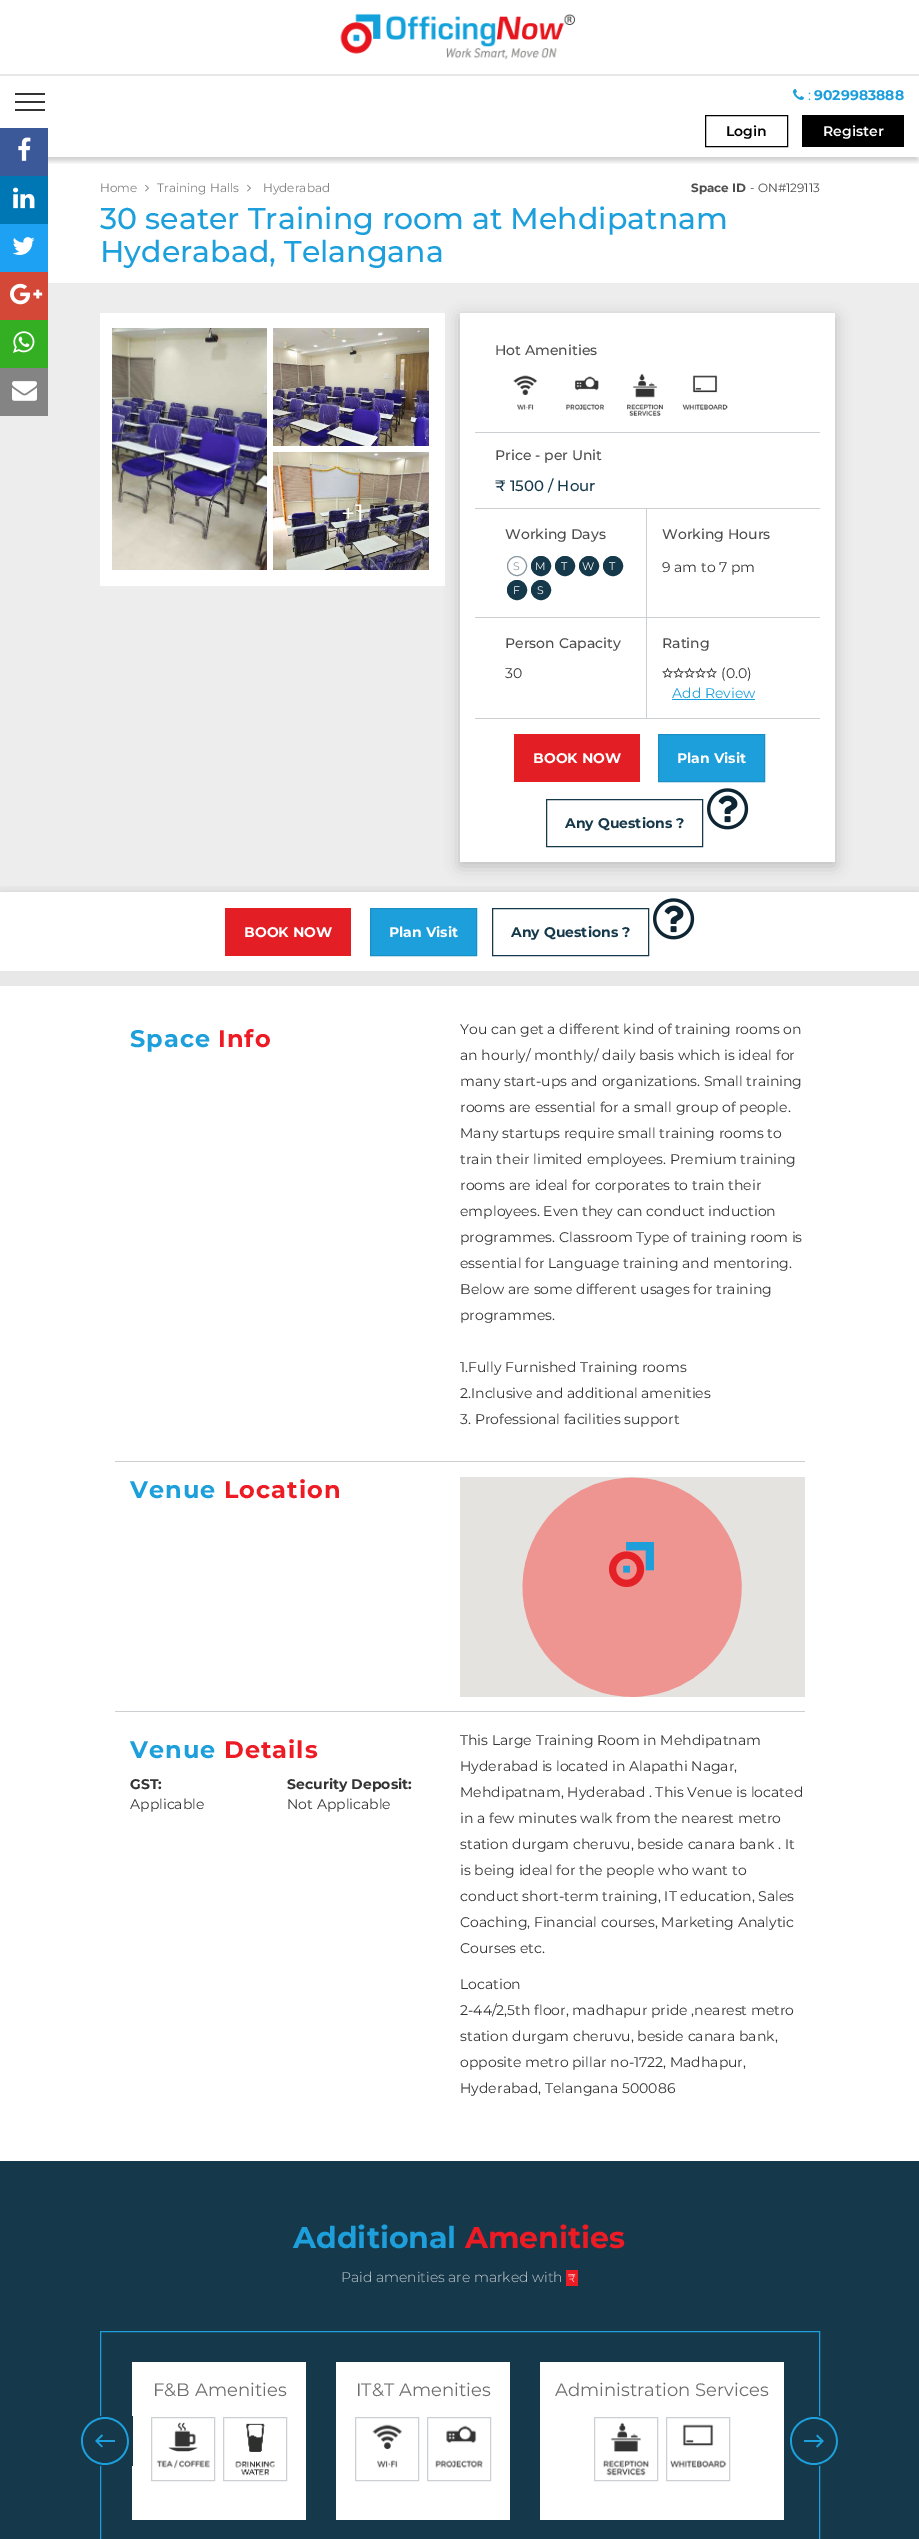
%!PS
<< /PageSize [919 2539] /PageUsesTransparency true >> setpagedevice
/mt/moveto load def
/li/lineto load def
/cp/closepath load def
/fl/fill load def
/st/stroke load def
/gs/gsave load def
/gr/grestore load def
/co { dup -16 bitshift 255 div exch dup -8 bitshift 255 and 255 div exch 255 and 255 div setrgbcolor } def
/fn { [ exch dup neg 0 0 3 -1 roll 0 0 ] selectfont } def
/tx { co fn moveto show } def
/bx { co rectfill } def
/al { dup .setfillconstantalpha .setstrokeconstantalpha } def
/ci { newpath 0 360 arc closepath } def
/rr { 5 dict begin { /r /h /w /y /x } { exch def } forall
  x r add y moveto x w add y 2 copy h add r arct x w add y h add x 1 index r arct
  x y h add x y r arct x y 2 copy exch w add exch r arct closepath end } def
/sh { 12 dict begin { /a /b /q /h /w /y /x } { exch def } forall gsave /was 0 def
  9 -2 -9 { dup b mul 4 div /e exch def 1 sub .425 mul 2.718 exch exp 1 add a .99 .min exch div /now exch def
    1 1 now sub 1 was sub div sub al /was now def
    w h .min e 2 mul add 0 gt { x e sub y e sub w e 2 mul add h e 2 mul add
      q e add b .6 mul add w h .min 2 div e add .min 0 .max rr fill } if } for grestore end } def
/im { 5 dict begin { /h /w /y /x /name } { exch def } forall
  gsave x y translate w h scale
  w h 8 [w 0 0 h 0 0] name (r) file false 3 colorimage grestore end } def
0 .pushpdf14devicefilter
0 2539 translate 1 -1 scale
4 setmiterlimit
0 0 919 2539 16#FFFFFF bx
gs
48 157 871 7 rectclip
16#000000 co
1 6 917 155 0 2.5 .19 sh
gr
0 74 919 2 16#E8E8E8 bx
(media/1.raw) 340 13 235 47 im
15 93 30 2 16#333333 bx
15 101 30 2 16#333333 bx
15 109 30 2 16#333333 bx
(media/2.raw) 793 89 11 11 im
16#000000 co
705.5 115.5 82 31 rectstroke
802 115 102 32 16#000000 bx
0 128 48 48 16#3B5998 bx
(media/3.raw) 18 137 13 24 im
0 176 48 48 16#0077B5 bx
(media/4.raw) 13 187 22 22 im
0 224 48 48 16#1DA1F2 bx
(media/5.raw) 12 237 23 18 im
0 283 919 609 16#EDEDED bx
0 272 48 48 16#D34836 bx
(media/6.raw) 10 283 33 22 im
0 320 48 48 16#34AF23 bx
(media/7.raw) 13 331 22 22 im
0 368 48 48 16#848484 bx
(media/8.raw) 12 381 25 20 im
(media/9.raw) 145 184 4 8 im
(media/9.raw) 247 184 4 8 im
100 313 345 273 16#FFFFFF bx
(media/10.raw) 112 328 155 242 im
(media/11.raw) 273 328 156 118 im
(media/12.raw) 273 452 156 118 im
16#000000 co
460 317 375 549 0 7.5 .2 sh
460 313 375 549 16#FFFFFF bx
(media/13.raw) 513 375 25 35 im
(media/14.raw) 566 376 38 34 im
(media/15.raw) 627 374 36 42 im
(media/16.raw) 682 375 46 35 im
475 432 345 1 16#CCD0D3 bx
475 508 345 1 16#CCD0D3 bx
646 509 1 108 16#CCD0D3 bx
16#8996A0 co
517 566 9.5 ci st
16#15384B co
541 566 9.5 ci gs fl gr
st
565 566 9.5 ci gs fl gr
st
589 566 9.5 ci gs fl gr
st
613 566 9.5 ci gs fl gr
st
517 590 9.5 ci gs fl gr
st
541 590 9.5 ci gs fl gr
st
475 617 345 1 16#CCD0D3 bx
646 618 1 100 16#CCD0D3 bx
(media/17.raw) 662 667 11 11 im
(media/17.raw) 673 667 11 11 im
(media/17.raw) 684 667 11 11 im
(media/17.raw) 695 667 11 11 im
(media/17.raw) 706 667 11 11 im
672 699 83 1 16#1D9FDB bx
475 718 345 1 16#CCD0D3 bx
514 734 126 48 16#E31E24 bx
16#1D9FDB co
658.5 734.5 mt 764.5 734.5 li 764.5 781.5 li 658.5 781.5 li cp gs fl gr
16#1A8FC4 co
st
16#15384B co
546.5 799.5 156 47 rectstroke
(media/18.raw) 707 788 42 42 im
gs
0 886 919 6 rectclip
16#000000 co
0 896 919 79 0 7.5 .2 sh
gr
225 908 126 48 16#E31E24 bx
16#1D9FDB co
370.5 908.5 mt 476.5 908.5 li 476.5 955.5 li 370.5 955.5 li cp gs fl gr
16#1A8FC4 co
st
16#15384B co
492.5 908.5 156 47 rectstroke
(media/18.raw) 653 898 42 42 im
0 971 919 15 16#E8E8E8 bx
6 986 907 1 16#FFFFFF bx
115 1461 690 1 16#CCD0D3 bx
460 1477 345 220 16#E5E3DF bx
(media/19.raw) 536 1477 92 57 im
(media/20.raw) 628 1477 100 57 im
(media/21.raw) 522 1534 106 163 im
(media/22.raw) 628 1534 114 163 im
(media/23.raw) 609 1542 45 45 im
115 1711 690 1 16#CCD0D3 bx
0 2161 919 378 16#15384B bx
566 2270 12 16 16#ED1B24 bx
16#1D9FDB co
100.5 2331.5 719 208 rectstroke
132 2362 174 158 16#FFFFFF bx
16#CCD0D3 co
151.5 2417.5 63 63 rectstroke
(media/24.raw) 156 2422 54 47 im
223.5 2417.5 63 63 rectstroke
(media/25.raw) 235 2423 40 53 im
336 2362 174 158 16#FFFFFF bx
16#CCD0D3 co
355.5 2417.5 63 63 rectstroke
(media/26.raw) 372 2424 31 44 im
427.5 2417.5 63 63 rectstroke
(media/27.raw) 435 2425 48 43 im
540 2362 244 158 16#FFFFFF bx
16#CCD0D3 co
594.5 2417.5 63 63 rectstroke
(media/28.raw) 603 2422 46 54 im
666.5 2417.5 63 63 rectstroke
(media/29.raw) 670 2424 57 44 im
100 2416 33 50 16#15384B bx
(media/30.raw) 81 2417 48 48 im
819 2416 1 50 16#15384B bx
(media/31.raw) 790 2417 48 48 im
(:) 808 100 /Montserrat-Regular 14 16#1D9FDB tx
(9029983888) 814 100 /Montserrat-Bold 14 16#1D9FDB tx
(Login) 726 136 /Montserrat-SemiBold 14 16#000000 tx
(Register) 823 136 /Montserrat-SemiBold 14 16#FFFFFF tx
(Home) 100 192 /Montserrat-Regular 12 16#828282 tx
(Training Halls) 157 192 /Montserrat-Regular 12 16#828282 tx
(Hyderabad) 263 192 /Montserrat-Regular 12 16#828282 tx
(Space ID) 691 192 /Montserrat-Bold 12 16#4D4D4D tx
(- ON#129113) 750 192 /Montserrat-Regular 12 16#4D4D4D tx
(30 seater Training room at Mehdipatnam) 100 229 /Montserrat-Medium 30 16#1D9FDB tx
(Hyderabad, Telangana) 100 262 /Montserrat-Medium 30 16#1D9FDB tx
(+1) 341 522 /Montserrat-Regular 25 16#FFFFFF tx
(Hot Amenities) 495 355 /Montserrat-Medium 14 16#4D4D4D tx
(Price - per Unit) 495 460 /Montserrat-Medium 14 16#4D4D4D tx
(₹ 1500 / Hour) 495 491 /Montserrat-Medium 15 16#15384B tx
(Working Days) 505 539 /Montserrat-Medium 14 16#4D4D4D tx
(S) 513 570 /Montserrat-Regular 11 16#8996A0 tx
(M) 535 570 /Montserrat-Regular 11 16#FFFFFF tx
(T) 561 570 /Montserrat-Regular 11 16#FFFFFF tx
(W) 582 570 /Montserrat-Regular 11 16#FFFFFF tx
(T) 609 570 /Montserrat-Regular 11 16#FFFFFF tx
(F) 513 594 /Montserrat-Regular 11 16#FFFFFF tx
(S) 537 594 /Montserrat-Regular 11 16#FFFFFF tx
(Working Hours) 662 539 /Montserrat-Medium 14 16#4D4D4D tx
(9 am to 7 pm) 662 572 /Montserrat-Regular 14 16#333333 tx
(Person Capacity) 505 648 /Montserrat-Medium 14 16#4D4D4D tx
(30) 505 678 /Montserrat-Regular 14 16#333333 tx
(Rating) 662 648 /Montserrat-Medium 14 16#4D4D4D tx
(\(0.0\)) 721 678 /Montserrat-Regular 14 16#333333 tx
(Add Review) 672 698 /Montserrat-Regular 14 16#1D9FDB tx
(BOOK NOW) 533 763 /Montserrat-Bold 14 16#FFFFFF tx
(Plan Visit) 677 763 /Montserrat-Bold 14 16#FFFFFF tx
(Any Questions ?) 565 828 /Montserrat-Bold 14 16#15384B tx
(BOOK NOW) 244 937 /Montserrat-Bold 14 16#FFFFFF tx
(Plan Visit) 389 937 /Montserrat-Bold 14 16#FFFFFF tx
(Any Questions ?) 511 937 /Montserrat-Bold 14 16#15384B tx
/Montserrat-Bold 24 fn
16#1D9FDB co
130 1047 mt 1 0 (Space) ashow
16#ED1B24 co
218 1047 mt 1 0 (Info) ashow
(You can get a different kind of training rooms on) 460 1034 /Montserrat-Regular 14 16#333333 tx
(an hourly/ monthly/ daily basis which is ideal for) 460 1060 /Montserrat-Regular 14 16#333333 tx
(many start-ups and organizations. Small training) 460 1086 /Montserrat-Regular 14 16#333333 tx
(rooms are essential for a small group of people.) 460 1112 /Montserrat-Regular 14 16#333333 tx
(Many startups require small training rooms to) 460 1138 /Montserrat-Regular 14 16#333333 tx
(train their limited employees. Premium training) 460 1164 /Montserrat-Regular 14 16#333333 tx
(rooms are ideal for corporates to train their) 460 1190 /Montserrat-Regular 14 16#333333 tx
(employees. Even they can conduct induction) 460 1216 /Montserrat-Regular 14 16#333333 tx
(programmes. Classroom Type of training room is) 460 1242 /Montserrat-Regular 14 16#333333 tx
(essential for Language training and mentoring.) 460 1268 /Montserrat-Regular 14 16#333333 tx
(Below are some different usages for training) 460 1294 /Montserrat-Regular 14 16#333333 tx
(programmes.) 460 1320 /Montserrat-Regular 14 16#333333 tx
(1.Fully Furnished Training rooms) 460 1372 /Montserrat-Regular 14 16#333333 tx
(2.Inclusive and additional amenities) 460 1398 /Montserrat-Regular 14 16#333333 tx
(3. Professional facilities support) 460 1424 /Montserrat-Regular 14 16#333333 tx
/Montserrat-Bold 24 fn
16#1D9FDB co
130 1498 mt 1 0 (Venue) ashow
16#ED1B24 co
224 1498 mt 1 0 (Location) ashow
16#1D9FDB co
130 1758 mt 1 0 (Venue) ashow
16#ED1B24 co
224 1758 mt 1 0 (Details) ashow
(GST:) 130 1789 /Montserrat-Bold 14 16#333333 tx
(Applicable) 130 1809 /Montserrat-Regular 14 16#333333 tx
(Security Deposit:) 287 1789 /Montserrat-Bold 14 16#333333 tx
(Not Applicable) 287 1809 /Montserrat-Regular 14 16#333333 tx
(This Large Training Room in Mehdipatnam) 460 1745 /Montserrat-Regular 14 16#333333 tx
(Hyderabad is located in Alapathi Nagar,) 460 1771 /Montserrat-Regular 14 16#333333 tx
(Mehdipatnam, Hyderabad . This Venue is located) 460 1797 /Montserrat-Regular 14 16#333333 tx
(in a few minutes walk from the nearest metro) 460 1823 /Montserrat-Regular 14 16#333333 tx
(station durgam cheruvu, beside canara bank . It) 460 1849 /Montserrat-Regular 14 16#333333 tx
(is being ideal for the people who want to) 460 1875 /Montserrat-Regular 14 16#333333 tx
(conduct short-term training, IT education, Sales) 460 1901 /Montserrat-Regular 14 16#333333 tx
(Coaching, Financial courses, Marketing Analytic) 460 1927 /Montserrat-Regular 14 16#333333 tx
(Courses etc.) 460 1953 /Montserrat-Regular 14 16#333333 tx
(Location) 460 1989 /Montserrat-Regular 14 16#333333 tx
(2-44/2,5th floor, madhapur pride ,nearest metro) 460 2015 /Montserrat-Regular 14 16#333333 tx
(station durgam cheruvu, beside canara bank,) 460 2041 /Montserrat-Regular 14 16#333333 tx
(opposite metro pillar no-1722, Madhapur,) 460 2067 /Montserrat-Regular 14 16#333333 tx
(Hyderabad, Telangana 500086) 460 2093 /Montserrat-Regular 14 16#333333 tx
(Additional) 293 2248 /Montserrat-Bold 30 16#1D9FDB tx
(Amenities) 465 2248 /Montserrat-Bold 30 16#ED1B24 tx
(Paid amenities are marked with) 341 2282 /Montserrat-Light 14 16#CCD0D3 tx
(₹) 568 2282 /Montserrat-Light 11 16#FFFFFF tx
(F&B Amenities) 153 2396 /Montserrat-Regular 18 16#6E6E6E tx
(IT&T Amenities) 356 2396 /Montserrat-Regular 18 16#6E6E6E tx
(Administration Services) 555 2396 /Montserrat-Regular 18 16#6E6E6E tx
.poppdf14devicefilter showpage
